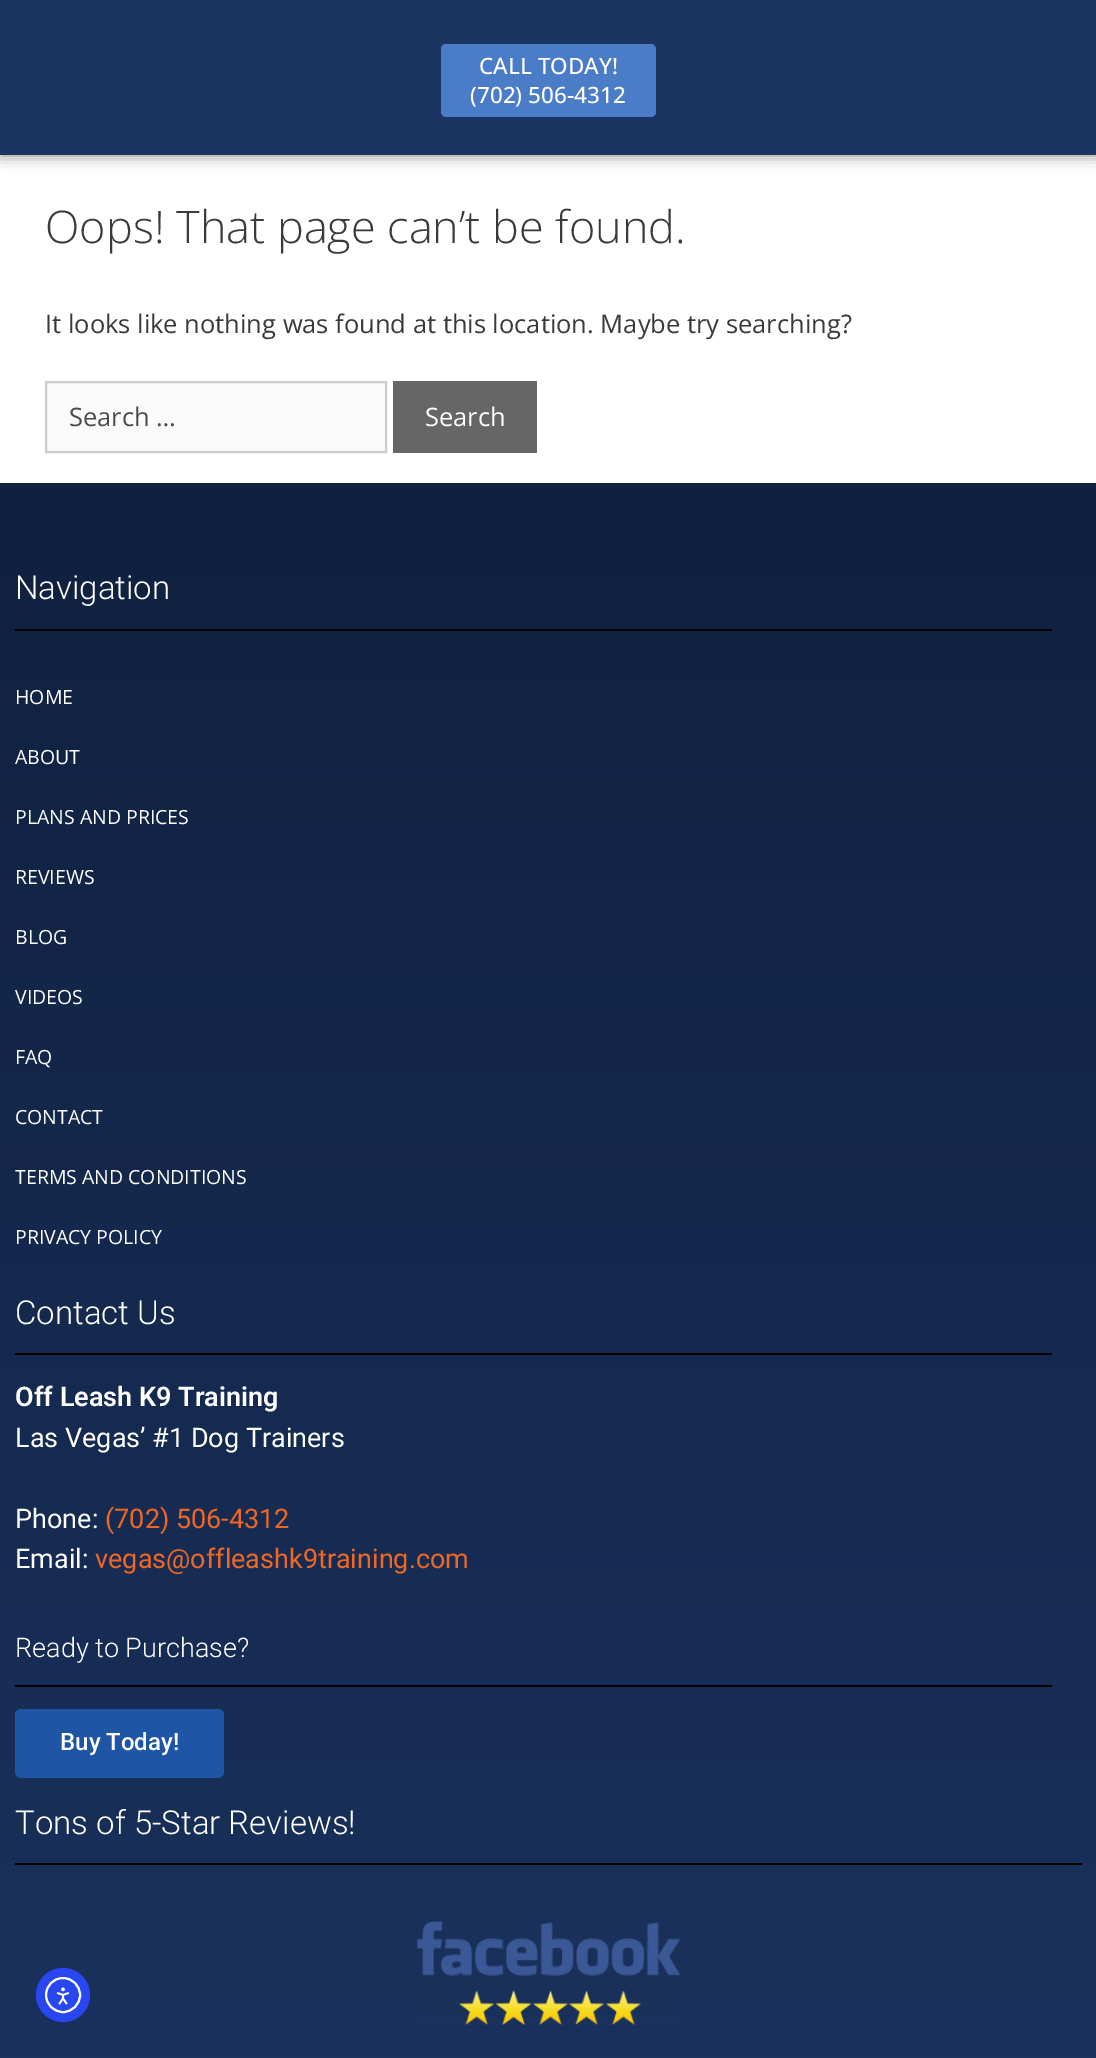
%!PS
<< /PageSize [1096 2058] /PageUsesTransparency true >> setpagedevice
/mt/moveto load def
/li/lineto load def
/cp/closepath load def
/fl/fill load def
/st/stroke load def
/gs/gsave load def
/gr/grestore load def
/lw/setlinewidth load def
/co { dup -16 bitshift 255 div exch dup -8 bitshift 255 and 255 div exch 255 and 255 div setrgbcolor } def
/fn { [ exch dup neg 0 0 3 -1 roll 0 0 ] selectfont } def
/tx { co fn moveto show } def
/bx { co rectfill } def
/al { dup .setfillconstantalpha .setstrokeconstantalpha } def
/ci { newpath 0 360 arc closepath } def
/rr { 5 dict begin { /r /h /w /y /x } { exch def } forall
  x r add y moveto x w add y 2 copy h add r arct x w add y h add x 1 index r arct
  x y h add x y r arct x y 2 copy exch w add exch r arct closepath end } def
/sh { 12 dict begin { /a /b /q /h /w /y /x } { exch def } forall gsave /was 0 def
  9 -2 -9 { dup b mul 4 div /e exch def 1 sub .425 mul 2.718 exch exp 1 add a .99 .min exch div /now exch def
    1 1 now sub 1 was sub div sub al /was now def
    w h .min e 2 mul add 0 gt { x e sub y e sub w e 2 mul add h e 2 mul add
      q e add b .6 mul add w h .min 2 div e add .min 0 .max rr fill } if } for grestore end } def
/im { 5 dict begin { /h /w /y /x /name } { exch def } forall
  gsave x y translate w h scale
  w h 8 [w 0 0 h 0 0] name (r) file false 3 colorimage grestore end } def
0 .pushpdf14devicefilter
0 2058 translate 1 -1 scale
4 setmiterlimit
0 0 1096 2058 16#FFFFFF bx
16#000000 co
0 -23 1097 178 0 7.5 .5 sh
0 0 1096 155 16#1B3462 bx
16#4B7CC7 co
441 44 215 73 5 rr fl
16#FAFAFA co
46 382 mt 386 382 li 386 452 li 46 452 li cp gs fl gr
16#CCCCCC co
2 lw
st
393 381 144 72 16#666666 bx
gs 0 483 mt 1096 483 li 1096 2058 li 0 2058 li cp clip newpath
<< /ShadingType 2 /ColorSpace /DeviceRGB /Coords [548 483 548 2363] /Extend [true true] /Function << /FunctionType 2 /Domain [0 1] /C0 [.063 .129 .247] /C1 [.106 .204 .384] /N 1 >> >> shfill gr
15 629 1037 2 16#000000 bx
15 1353 1037 2 16#000000 bx
15 1685 1037 2 16#000000 bx
16#1E56A5 co
15 1709 209 69 6 rr fl
15 1863 1067 2 16#000000 bx
(media/1.raw) 417 1921 263 104 im
16#2847F3 co
63 1995 27 ci fl
16#FFFFFF co
63 1995 17 ci st
(media/2.raw) 56 1987 14 18 im
(CALL TODAY!) 479 74 /OpenSans-Medium 22.5 16#FFFFFF tx
(\(702\) 506-4312) 470 103 /OpenSans-Medium 22.5 16#FFFFFF tx
(Oops! That page can’t be found.) 45 243 /OpenSans-Light 45 16#3A3A3A tx
(It looks like nothing was found at this location. Maybe try searching?) 45 333 /OpenSans-Regular 25.5 16#3A3A3A tx
(Search …) 69 426 /OpenSans-Regular 25.5 16#4A4A4A tx
(Search) 425 426 /OpenSans-Regular 25.5 16#FFFFFF tx
(Navigation) 15 599 /Roboto-Light 33 16#FFFFFF tx
(HOME) 15 704 /OpenSans-Regular 19.5 16#FFFFFF tx
(ABOUT) 15 764 /OpenSans-Regular 19.5 16#FFFFFF tx
(PLANS AND PRICES) 15 824 /OpenSans-Regular 19.5 16#FFFFFF tx
(REVIEWS) 15 884 /OpenSans-Regular 19.5 16#FFFFFF tx
(BLOG) 15 944 /OpenSans-Regular 19.5 16#FFFFFF tx
(VIDEOS) 15 1004 /OpenSans-Regular 19.5 16#FFFFFF tx
(FAQ) 15 1064 /OpenSans-Regular 19.5 16#FFFFFF tx
(CONTACT) 15 1124 /OpenSans-Regular 19.5 16#FFFFFF tx
(TERMS AND CONDITIONS) 15 1184 /OpenSans-Regular 19.5 16#FFFFFF tx
(PRIVACY POLICY) 15 1244 /OpenSans-Regular 19.5 16#FFFFFF tx
(Contact Us) 15 1324 /Roboto-Light 33 16#FFFFFF tx
(Off Leash K9 Training) 15 1406 /Roboto-SemiBold 27 16#FFFFFF tx
(Las Vegas’ #1 Dog Trainers) 15 1447 /Roboto-Regular 27 16#FFFFFF tx
(Phone:) 15 1528 /Roboto-Regular 27 16#FFFFFF tx
(\(702\) 506-4312) 105 1528 /Roboto-Regular 27 16#F16722 tx
(Email:) 15 1568 /Roboto-Regular 27 16#FFFFFF tx
(vegas@offleashk9training.com) 95 1568 /Roboto-Regular 27 16#F16722 tx
(Ready to Purchase?) 15 1657 /Roboto-Light 27 16#FFFFFF tx
(Buy Today!) 60 1750 /Roboto-Medium 24 16#FFFFFF tx
(Tons of 5-Star Reviews!) 15 1834 /Roboto-Light 33 16#FFFFFF tx
.poppdf14devicefilter showpage
